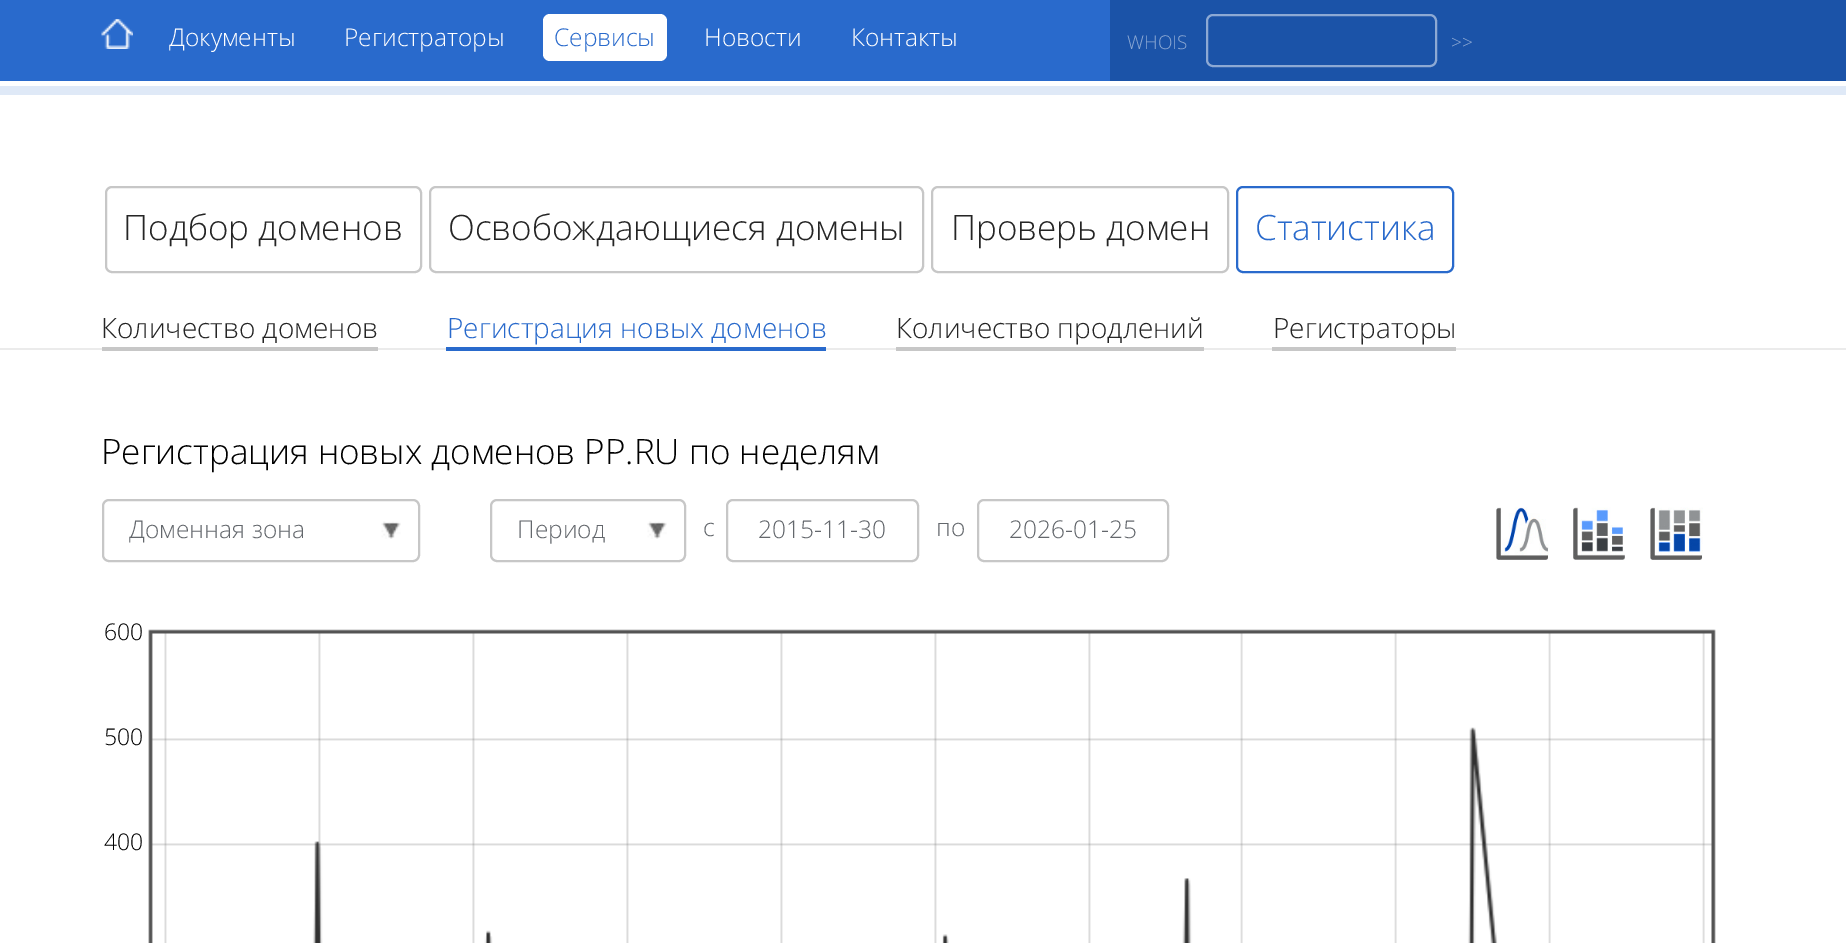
%!PS
<< /PageSize [1846 943] >> setpagedevice
/fl/fill load def
/st/stroke load def
/lw/setlinewidth load def
/co { dup -16 bitshift 255 div exch dup -8 bitshift 255 and 255 div exch 255 and 255 div setrgbcolor } def
/fn { [ exch dup neg 0 0 3 -1 roll 0 0 ] selectfont } def
/tx { co fn moveto show } def
/bx { co rectfill } def
/rr { 5 dict begin { /r /h /w /y /x } { exch def } forall
  x r add y moveto x w add y 2 copy h add r arct x w add y h add x 1 index r arct
  x y h add x y r arct x y 2 copy exch w add exch r arct closepath end } def
/im { 5 dict begin { /h /w /y /x /name } { exch def } forall
  gsave x y translate w h scale
  w h 8 [w 0 0 h 0 0] name (r) file false 3 colorimage grestore end } def
0 943 translate 1 -1 scale
4 setmiterlimit
0 0 1846 943 16#FFFFFF bx
0 0 1110 81 16#296ACC bx
(media/1.raw) 101 19 32 30 im
16#FFFFFF co
543 14 124 47 7 rr fl
1110 0 736 81 16#1B53A8 bx
16#8DA9D4 co
2 lw
1207 15 229 51 6 rr st
0 86 1846 9 16#DFE9F7 bx
16#C7C7C7 co
106 187 315 85 6 rr st
430 187 493 85 6 rr st
932 187 296 85 6 rr st
16#296ACC co
1237 187 216 85 6 rr st
0 348 1846 2 16#EBEBEB bx
102 347 276 4 16#C7C7C7 bx
446 347 380 4 16#296ACC bx
896 347 308 4 16#C7C7C7 bx
1272 347 184 4 16#C7C7C7 bx
103 500 316 61 6 rr st
(media/2.raw) 381 521 20 18 im
491 500 194 61 6 rr st
(media/3.raw) 647 521 20 18 im
727 500 191 61 6 rr st
978 500 190 61 6 rr st
(media/4.raw) 1496 507 53 53 im
(media/5.raw) 1573 507 52 53 im
(media/6.raw) 1650 507 53 53 im
(media/7.raw) 148 629 1568 314 im
(Документы) 169 46 /OpenSans-Light 24.5 16#FFFFFF tx
(Регистраторы) 344 46 /OpenSans-Light 24.5 16#FFFFFF tx
(Сервисы) 554 46 /OpenSans-Light 24.5 16#296ACC tx
(Новости) 704 46 /OpenSans-Light 24.5 16#FFFFFF tx
(Контакты) 851 46 /OpenSans-Light 24.5 16#FFFFFF tx
(WHOIS) 1127 49 /OpenSans-Light 19 16#8DA9D4 tx
(>>) 1451 49 /OpenSans-Light 19 16#8DA9D4 tx
(Подбор доменов) 123 240 /OpenSans-Light 35 16#252525 tx
(Освобождающиеся домены) 448 240 /OpenSans-Light 35 16#252525 tx
(Проверь домен) 951 240 /OpenSans-Light 35 16#252525 tx
(Статистика) 1255 240 /OpenSans-Light 35 16#296ACC tx
(Количество доменов) 101 338 /OpenSans-Light 28 16#252525 tx
(Регистрация новых доменов) 447 338 /OpenSans-Light 28 16#296ACC tx
(Количество продлений) 896 338 /OpenSans-Light 28 16#252525 tx
(Регистраторы) 1273 338 /OpenSans-Light 28 16#252525 tx
(Регистрация новых доменов PP.RU по неделям) 101 464 /OpenSans-Light 35 16#000000 tx
(Доменная зона) 129 538 /OpenSans-Light 24.5 16#63676C tx
(Период) 517 538 /OpenSans-Light 24.5 16#63676C tx
(с) 703 536 /OpenSans-Light 24.5 16#63676C tx
(2015-11-30) 758 538 /OpenSans-Light 24.5 16#63676C tx
(по) 936 536 /OpenSans-Light 24.5 16#63676C tx
(2026-01-25) 1009 538 /OpenSans-Light 24.5 16#63676C tx
(600) 104 640 /OpenSans-Light 23 16#000000 tx
(500) 104 745 /OpenSans-Light 23 16#000000 tx
(400) 104 850 /OpenSans-Light 23 16#000000 tx
showpage
